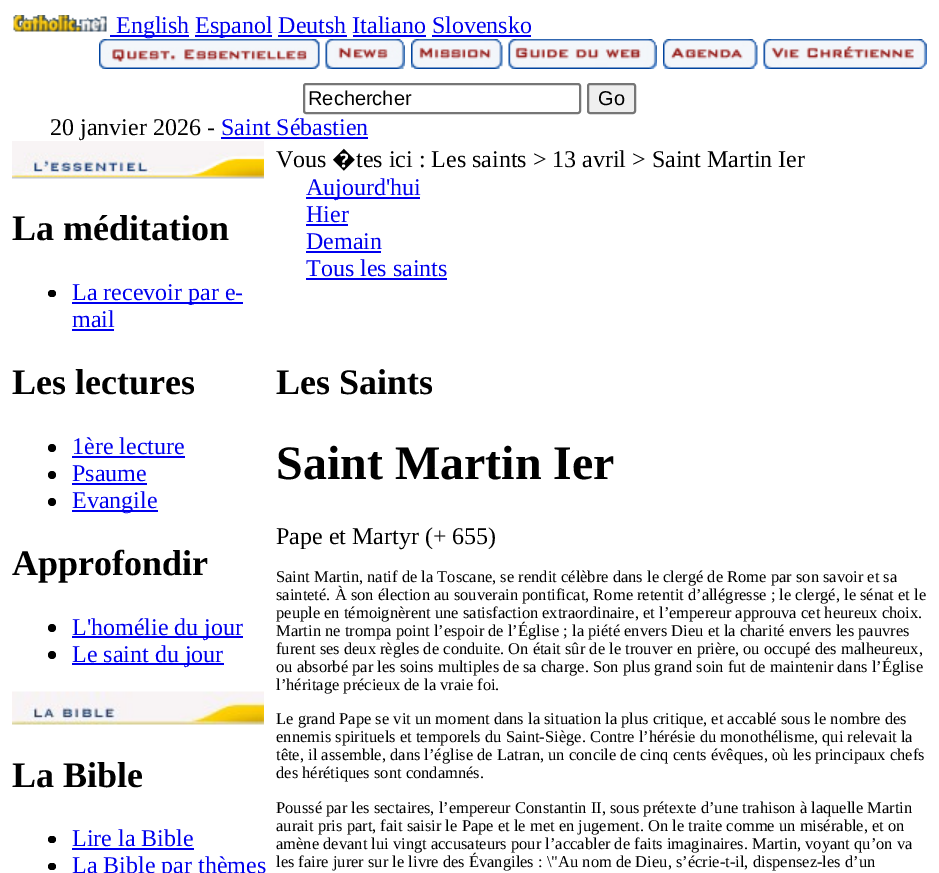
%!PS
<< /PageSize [939 873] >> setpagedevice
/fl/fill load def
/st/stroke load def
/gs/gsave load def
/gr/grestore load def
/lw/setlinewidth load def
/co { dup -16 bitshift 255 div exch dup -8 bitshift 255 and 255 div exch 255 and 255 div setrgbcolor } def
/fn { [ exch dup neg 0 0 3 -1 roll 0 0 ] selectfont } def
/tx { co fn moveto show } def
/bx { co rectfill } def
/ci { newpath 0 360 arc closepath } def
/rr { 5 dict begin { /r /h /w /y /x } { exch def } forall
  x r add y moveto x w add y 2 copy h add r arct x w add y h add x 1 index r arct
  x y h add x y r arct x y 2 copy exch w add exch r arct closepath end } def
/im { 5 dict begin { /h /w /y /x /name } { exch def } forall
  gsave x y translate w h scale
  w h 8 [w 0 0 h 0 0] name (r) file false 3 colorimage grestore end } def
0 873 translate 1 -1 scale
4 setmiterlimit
0 0 939 873 16#FFFFFF bx
(media/1.raw) 13 15 94 17 im
195 35 77 2 16#0000EE bx
110 35 79 2 16#0000EE bx
278 35 69 2 16#0000EE bx
353 35 73 2 16#0000EE bx
432 35 99 2 16#0000EE bx
(media/2.raw) 99 39 221 30 im
(media/3.raw) 325 39 80 30 im
(media/4.raw) 411 39 92 30 im
(media/5.raw) 508 39 149 30 im
(media/6.raw) 663 39 95 30 im
(media/7.raw) 763 39 164 30 im
16#767676 co
2 lw
304 84 276 29 2 rr st
16#EFEFEF co
588 84 47 29 2 rr gs fl gr
16#767676 co
st
221 137 147 2 16#0000EE bx
(media/8.raw) 12 141 252 38 im
16#000000 co
48 290 8 7 3.5 rr fl
72 302 171 2 16#0000EE bx
72 329 42 2 16#0000EE bx
16#000000 co
52 448 4 ci fl
72 456 113 2 16#0000EE bx
16#000000 co
52 475 4 ci fl
72 483 75 2 16#0000EE bx
16#000000 co
52 502 4 ci fl
72 510 86 2 16#0000EE bx
16#000000 co
52 628 4 ci fl
72 636 171 2 16#0000EE bx
16#000000 co
52 655 4 ci fl
72 663 152 2 16#0000EE bx
(media/9.raw) 12 691 252 34 im
16#000000 co
48 836 8 7 3.5 rr fl
72 848 122 2 16#0000EE bx
16#000000 co
48 863 8 7 3.5 rr fl
306 197 114 2 16#0000EE bx
306 224 42 2 16#0000EE bx
306 251 75 2 16#0000EE bx
306 278 141 2 16#0000EE bx
(English) 116 33 /LiberationSerif-Regular 24 16#0000EE tx
(Espanol Deutsh Italiano Slovensko) 195 33 /LiberationSerif-Regular 24 16#0000EE tx
(Rechercher) 308 105 /LiberationSans-Regular 20 16#000000 tx
(Go) 598 105 /LiberationSans-Regular 20 16#000000 tx
(20 janvier 2026 -) 50 135 /LiberationSerif-Regular 24 16#000000 tx
(Saint Sébastien) 221 135 /LiberationSerif-Regular 24 16#0000EE tx
(La méditation) 12 240 /LiberationSerif-Bold 36 16#000000 tx
(La recevoir par e-) 72 300 /LiberationSerif-Regular 24 16#0000EE tx
(mail) 72 327 /LiberationSerif-Regular 24 16#0000EE tx
(Les lectures) 12 394 /LiberationSerif-Bold 36 16#000000 tx
(1ère lecture) 72 454 /LiberationSerif-Regular 24 16#0000EE tx
(Psaume) 72 481 /LiberationSerif-Regular 24 16#0000EE tx
(Evangile) 72 508 /LiberationSerif-Regular 24 16#0000EE tx
(Approfondir) 12 575 /LiberationSerif-Bold 36 16#000000 tx
(L'homélie du jour) 72 635 /LiberationSerif-Regular 24 16#0000EE tx
(Le saint du jour) 72 662 /LiberationSerif-Regular 24 16#0000EE tx
(La Bible) 12 787 /LiberationSerif-Bold 36 16#000000 tx
(Lire la Bible) 72 846 /LiberationSerif-Regular 24 16#0000EE tx
(La Bible par thèmes) 72 873 /LiberationSerif-Regular 24 16#0000EE tx
(Vous) 276 167 /LiberationSerif-Regular 24 16#000000 tx
(�) 332 167 /NotoSans-Regular 24 16#000000 tx
(tes ici : Les saints > 13 avril > Saint Martin Ier) 356 167 /LiberationSerif-Regular 24 16#000000 tx
(Aujourd'hui) 306 195 /LiberationSerif-Regular 24 16#0000EE tx
(Hier) 306 222 /LiberationSerif-Regular 24 16#0000EE tx
(Demain) 306 249 /LiberationSerif-Regular 24 16#0000EE tx
(Tous les saints) 306 276 /LiberationSerif-Regular 24 16#0000EE tx
(Les Saints) 276 394 /LiberationSerif-Bold 36 16#000000 tx
(Saint Martin Ier) 276 479 /LiberationSerif-Bold 48 16#000000 tx
(Pape et Martyr \(+ 655\)) 276 544 /LiberationSerif-Regular 24 16#000000 tx
(Saint Martin, natif de la Toscane, se rendit célèbre dans le clergé de Rome par son savoir et sa) 276 582 /LiberationSerif-Regular 16.5 16#000000 tx
(sainteté. À son élection au souverain pontificat, Rome retentit d’allégresse ; le clergé, le sénat et le) 276 600 /LiberationSerif-Regular 16.5 16#000000 tx
(peuple en témoignèrent une satisfaction extraordinaire, et l’empereur approuva cet heureux choix.) 276 618 /LiberationSerif-Regular 16.5 16#000000 tx
(Martin ne trompa point l’espoir de l’Église ; la piété envers Dieu et la charité envers les pauvres) 276 636 /LiberationSerif-Regular 16.5 16#000000 tx
(furent ses deux règles de conduite. On était sûr de le trouver en prière, ou occupé des malheureux,) 276 654 /LiberationSerif-Regular 16.5 16#000000 tx
(ou absorbé par les soins multiples de sa charge. Son plus grand soin fut de maintenir dans l’Église) 276 672 /LiberationSerif-Regular 16.5 16#000000 tx
(l’héritage précieux de la vraie foi.) 276 690 /LiberationSerif-Regular 16.5 16#000000 tx
(Le grand Pape se vit un moment dans la situation la plus critique, et accablé sous le nombre des) 276 724 /LiberationSerif-Regular 16.5 16#000000 tx
(ennemis spirituels et temporels du Saint-Siège. Contre l’hérésie du monothélisme, qui relevait la) 276 742 /LiberationSerif-Regular 16.5 16#000000 tx
(tête, il assemble, dans l’église de Latran, un concile de cinq cents évêques, où les principaux chefs) 276 760 /LiberationSerif-Regular 16.5 16#000000 tx
(des hérétiques sont condamnés.) 276 778 /LiberationSerif-Regular 16.5 16#000000 tx
(Poussé par les sectaires, l’empereur Constantin II, sous prétexte d’une trahison à laquelle Martin) 276 813 /LiberationSerif-Regular 16.5 16#000000 tx
(aurait pris part, fait saisir le Pape et le met en jugement. On le traite comme un misérable, et on) 276 831 /LiberationSerif-Regular 16.5 16#000000 tx
(amène devant lui vingt accusateurs pour l’accabler de faits imaginaires. Martin, voyant qu’on va) 276 849 /LiberationSerif-Regular 16.5 16#000000 tx
(les faire jurer sur le livre des Évangiles : \\"Au nom de Dieu, s’écrie-t-il, dispensez-les d’un) 276 867 /LiberationSerif-Regular 16.5 16#000000 tx
showpage
